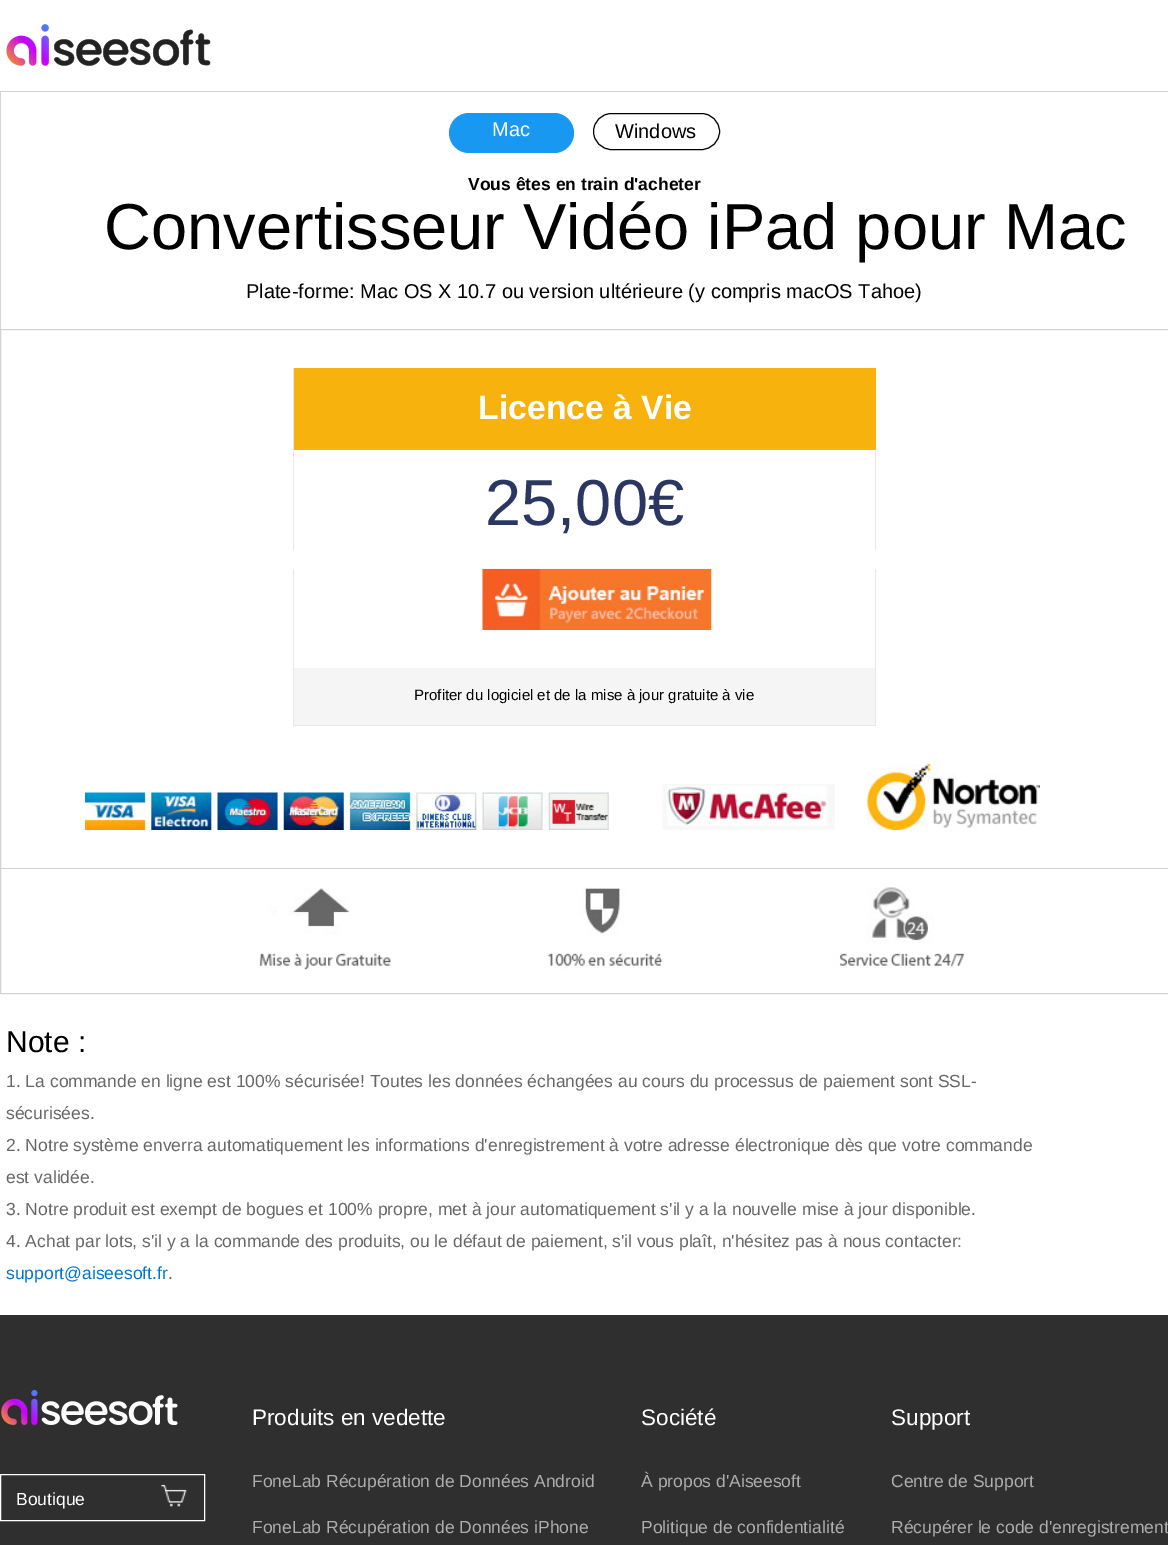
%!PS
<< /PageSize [1168 1545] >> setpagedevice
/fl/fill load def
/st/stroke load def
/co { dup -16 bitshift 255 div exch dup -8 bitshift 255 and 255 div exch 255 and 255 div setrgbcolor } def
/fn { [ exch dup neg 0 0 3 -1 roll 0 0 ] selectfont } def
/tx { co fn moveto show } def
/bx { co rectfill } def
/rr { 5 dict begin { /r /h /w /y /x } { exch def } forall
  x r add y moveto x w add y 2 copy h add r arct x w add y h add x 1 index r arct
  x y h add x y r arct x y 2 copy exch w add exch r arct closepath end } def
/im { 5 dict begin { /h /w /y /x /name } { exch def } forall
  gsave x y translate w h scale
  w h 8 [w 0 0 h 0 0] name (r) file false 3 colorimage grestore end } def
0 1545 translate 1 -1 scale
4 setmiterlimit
0 0 1168 1545 16#FFFFFF bx
(media/1.raw) 6 24 205 42 im
0 91 1168 1 16#D3D3D3 bx
0 91 1 238 16#D3D3D3 bx
16#1898F1 co
449 113 125 40 20 rr fl
16#000000 co
593.5 113.5 126 36 18 rr st
16#D3D3D3 co
.5 329.5 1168 664 rectstroke
294 368 582 82 16#F7B20E bx
293 368 1 182 16#E7E7E7 bx
875 450 1 100 16#E7E7E7 bx
(media/2.raw) 482 568 230 62 im
294 668 581 57 16#F5F5F5 bx
875 569 1 157 16#E7E7E7 bx
293 725 583 1 16#E7E7E7 bx
293 569 1 157 16#E7E7E7 bx
(media/3.raw) 85 792 524 38 im
(media/4.raw) 662 784 173 46 im
(media/5.raw) 867 763 173 67 im
1 868 1167 1 16#D3D3D3 bx
(media/6.raw) 259 887 705 83 im
0 1315 1168 230 16#2F2F2F bx
(media/7.raw) 1 1390 177 35 im
16#FFFFFF co
.5 1474.5 204 46 rectstroke
(media/8.raw) 161 1484 26 23 im
(Mac) 492 136 /LiberationSans-Regular 20 16#FFFFFF tx
(Windows) 615 138 /LiberationSans-Regular 20 16#000000 tx
(Vous êtes en train d'acheter) 468 190 /LiberationSans-Bold 17.5 16#000000 tx
(Convertisseur Vidéo iPad pour Mac) 104 249 /LiberationSans-Regular 65 16#000000 tx
(Plate-forme: Mac OS X 10.7 ou version ultérieure \(y compris macOS Tahoe\)) 246 298 /LiberationSans-Regular 20 16#000000 tx
(Licence à Vie) 478 419 /LiberationSans-Bold 33.75 16#FFFFFF tx
(25,00€) 485 525 /LiberationSans-Regular 65 16#2A3762 tx
(Profiter du logiciel et de la mise à jour gratuite à vie) 414 700 /LiberationSans-Regular 15 16#000000 tx
(Note :) 6 1052 /LiberationSans-Regular 30 16#000000 tx
(1. La commande en ligne est 100% sécurisée! Toutes les données échangées au cours du processus de paiement sont SSL-) 6 1087 /LiberationSans-Regular 17.5 16#676767 tx
(sécurisées.) 6 1119 /LiberationSans-Regular 17.5 16#676767 tx
(2. Notre système enverra automatiquement les informations d'enregistrement à votre adresse électronique dès que votre commande) 6 1151 /LiberationSans-Regular 17.5 16#676767 tx
(est validée.) 6 1183 /LiberationSans-Regular 17.5 16#676767 tx
(3. Notre produit est exempt de bogues et 100% propre, met à jour automatiquement s'il y a la nouvelle mise à jour disponible.) 6 1215 /LiberationSans-Regular 17.5 16#676767 tx
(4. Achat par lots, s'il y a la commande des produits, ou le défaut de paiement, s'il vous plaît, n'hésitez pas à nous contacter:) 6 1247 /LiberationSans-Regular 17.5 16#676767 tx
(support@aiseesoft.fr) 6 1279 /LiberationSans-Regular 17.5 16#0075D0 tx
(.) 168 1279 /LiberationSans-Regular 17.5 16#676767 tx
(Boutique) 16 1505 /LiberationSans-Regular 17.5 16#FFFFFF tx
(Produits en vedette) 252 1425 /LiberationSans-Regular 22.5 16#FFFFFF tx
(FoneLab Récupération de Données Android) 252 1487 /LiberationSans-Regular 17.5 16#AEAEAE tx
(FoneLab Récupération de Données iPhone) 252 1533 /LiberationSans-Regular 17.5 16#AEAEAE tx
(Société) 641 1425 /LiberationSans-Regular 22.5 16#FFFFFF tx
(À propos d'Aiseesoft) 641 1487 /LiberationSans-Regular 17.5 16#AEAEAE tx
(Politique de confidentialité) 641 1533 /LiberationSans-Regular 17.5 16#AEAEAE tx
(Support) 891 1425 /LiberationSans-Regular 22.5 16#FFFFFF tx
(Centre de Support) 891 1487 /LiberationSans-Regular 17.5 16#AEAEAE tx
(Récupérer le code d'enregistrement) 891 1533 /LiberationSans-Regular 17.5 16#AEAEAE tx
showpage
